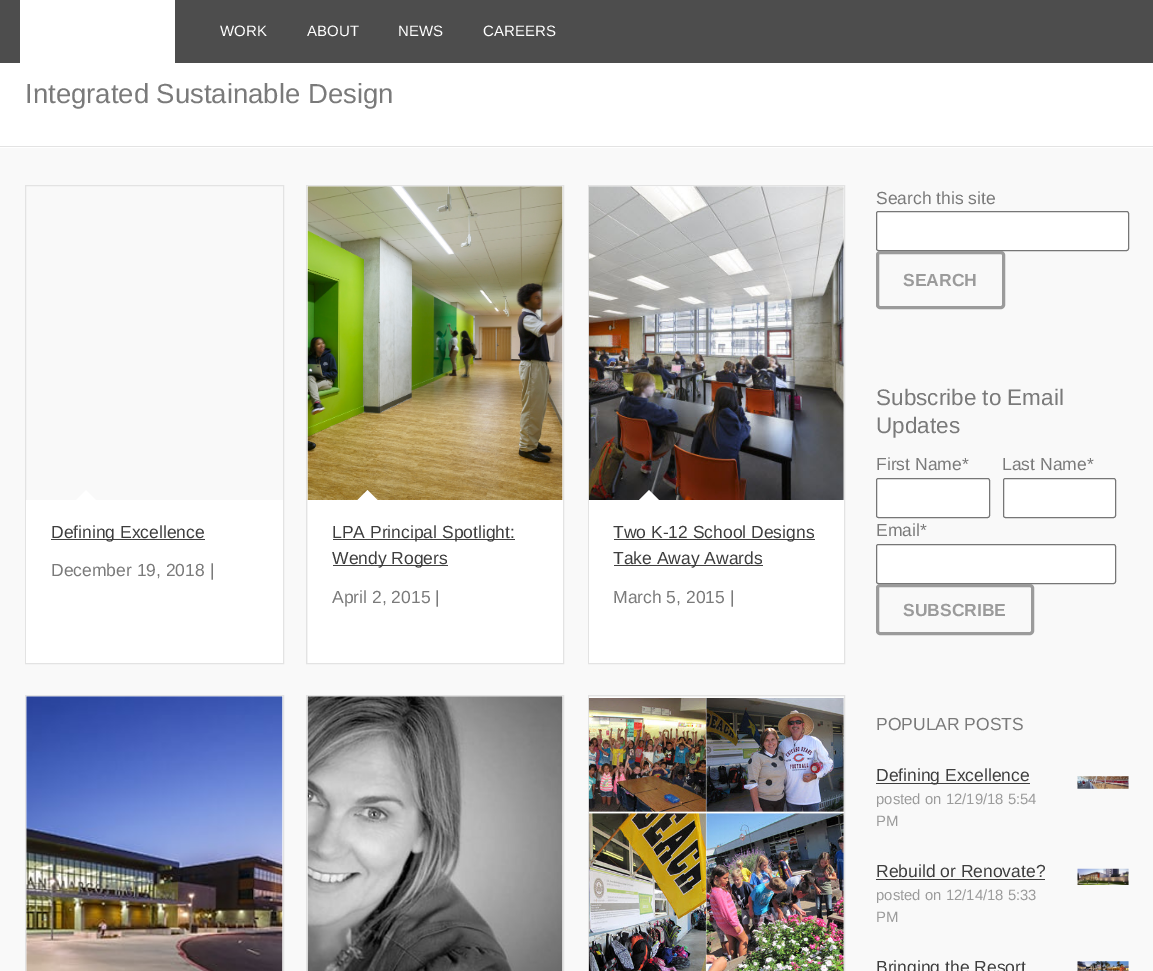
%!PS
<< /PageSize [1153 971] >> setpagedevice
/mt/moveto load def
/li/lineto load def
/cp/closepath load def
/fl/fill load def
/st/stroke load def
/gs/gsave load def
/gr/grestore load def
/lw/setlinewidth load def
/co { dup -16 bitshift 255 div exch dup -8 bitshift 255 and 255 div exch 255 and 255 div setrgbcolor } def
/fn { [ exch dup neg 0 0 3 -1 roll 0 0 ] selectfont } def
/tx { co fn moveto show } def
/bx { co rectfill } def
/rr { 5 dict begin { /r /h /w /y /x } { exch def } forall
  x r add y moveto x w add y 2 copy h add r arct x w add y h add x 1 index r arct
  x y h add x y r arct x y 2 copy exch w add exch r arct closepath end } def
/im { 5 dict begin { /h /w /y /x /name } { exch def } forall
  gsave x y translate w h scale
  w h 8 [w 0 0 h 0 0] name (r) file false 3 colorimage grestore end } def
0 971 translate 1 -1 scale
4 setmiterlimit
0 0 1153 971 16#FFFFFF bx
0 0 1153 63 16#4D4D4D bx
20 0 155 63 16#FFFFFF bx
0 146 1153 1 16#E3E3E3 bx
0 148 1153 823 16#F9F9F9 bx
16#E3E3E3 co
25.5 185.5 258 478 rectstroke
26 500 257 163 16#FFFFFF bx
96 500 mt 76 500 li 86 490 li cp fl
51 539 154 1 16#404040 bx
16#E3E3E3 co
306.5 185.5 257 478 rectstroke
(media/1.raw) 307 186 256 314 im
308 500 255 163 16#FFFFFF bx
377.5 500 mt 357.5 500 li 367.5 490 li cp fl
333 539 182 1 16#404040 bx
333 565 115 1 16#404040 bx
16#E3E3E3 co
588.5 185.5 256 478 rectstroke
(media/2.raw) 588 186 256 314 im
589 500 255 163 16#FFFFFF bx
659 500 mt 639 500 li 649 490 li cp fl
614 539 201 1 16#404040 bx
614 565 149 1 16#404040 bx
16#E3E3E3 co
25.5 695.5 258 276 rectstroke
(media/3.raw) 26 696 257 275 im
306.5 695.5 257 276 rectstroke
(media/4.raw) 307 696 256 275 im
588.5 695.5 256 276 rectstroke
(media/5.raw) 588 697 256 274 im
16#FFFFFF co
876.5 211.5 252 39 2 rr gs fl gr
16#767676 co
st
16#9B9B9B co
3 lw
877.5 252.5 126 55 2.5 rr st
16#FFFFFF co
876.5 478.5 113 39 2 rr gs fl gr
16#767676 co
1 lw
st
16#FFFFFF co
1003.5 478.5 112 39 2 rr gs fl gr
16#767676 co
st
16#FFFFFF co
876.5 544.5 239 39 2 rr gs fl gr
16#767676 co
st
16#9B9B9B co
3 lw
877.5 585.5 155 48 2.5 rr st
876 783 154 1 16#3E3E3E bx
(media/6.raw) 1077 776 52 13 im
876 879 169 1 16#3E3E3E bx
(media/7.raw) 1077 868 52 17 im
(media/8.raw) 1077 961 52 10 im
(WORK) 220 36 /LiberationSans-Regular 15 16#FFFFFF tx
(ABOUT) 307 36 /LiberationSans-Regular 15 16#FFFFFF tx
(NEWS) 398 36 /LiberationSans-Regular 15 16#FFFFFF tx
(CAREERS) 483 36 /LiberationSans-Regular 15 16#FFFFFF tx
(Integrated Sustainable Design) 25 103 /LiberationSans-Regular 27.5 16#7A7A7A tx
(Defining Excellence) 51 538 /LiberationSans-Regular 17.5 16#3E3E3E tx
(December 19, 2018 |) 51 576 /LiberationSans-Regular 17.5 16#7A7A7A tx
(LPA Principal Spotlight:) 332 538 /LiberationSans-Regular 17.5 16#3E3E3E tx
(Wendy Rogers) 332 564 /LiberationSans-Regular 17.5 16#3E3E3E tx
(April 2, 2015 |) 332 603 /LiberationSans-Regular 17.5 16#7A7A7A tx
(Two K-12 School Designs) 613 538 /LiberationSans-Regular 17.5 16#3E3E3E tx
(Take Away Awards) 613 564 /LiberationSans-Regular 17.5 16#3E3E3E tx
(March 5, 2015 |) 613 603 /LiberationSans-Regular 17.5 16#7A7A7A tx
(Search this site) 876 204 /LiberationSans-Regular 17.5 16#7A7A7A tx
(SEARCH) 903 286 /LiberationSans-Bold 17.5 16#9B9B9B tx
(Subscribe to Email) 876 405 /LiberationSans-Regular 22.5 16#7A7A7A tx
(Updates) 876 433 /LiberationSans-Regular 22.5 16#7A7A7A tx
(First Name*) 876 470 /LiberationSans-Regular 17.5 16#7A7A7A tx
(Last Name*) 1002 470 /LiberationSans-Regular 17.5 16#7A7A7A tx
(Email*) 876 536 /LiberationSans-Regular 17.5 16#7A7A7A tx
(SUBSCRIBE) 903 616 /LiberationSans-Bold 17.5 16#9B9B9B tx
(POPULAR POSTS) 876 730 /LiberationSans-Regular 17.5 16#7A7A7A tx
(Defining Excellence) 876 781 /LiberationSans-Regular 17.5 16#3E3E3E tx
(posted on 12/19/18 5:54) 876 804 /LiberationSans-Regular 14.9 16#9B9B9B tx
(PM) 876 826 /LiberationSans-Regular 14.9 16#9B9B9B tx
(Rebuild or Renovate?) 876 877 /LiberationSans-Regular 17.5 16#3E3E3E tx
(posted on 12/14/18 5:33) 876 900 /LiberationSans-Regular 14.9 16#9B9B9B tx
(PM) 876 922 /LiberationSans-Regular 14.9 16#9B9B9B tx
(Bringing the Resort) 876 973 /LiberationSans-Regular 17.5 16#3E3E3E tx
showpage
